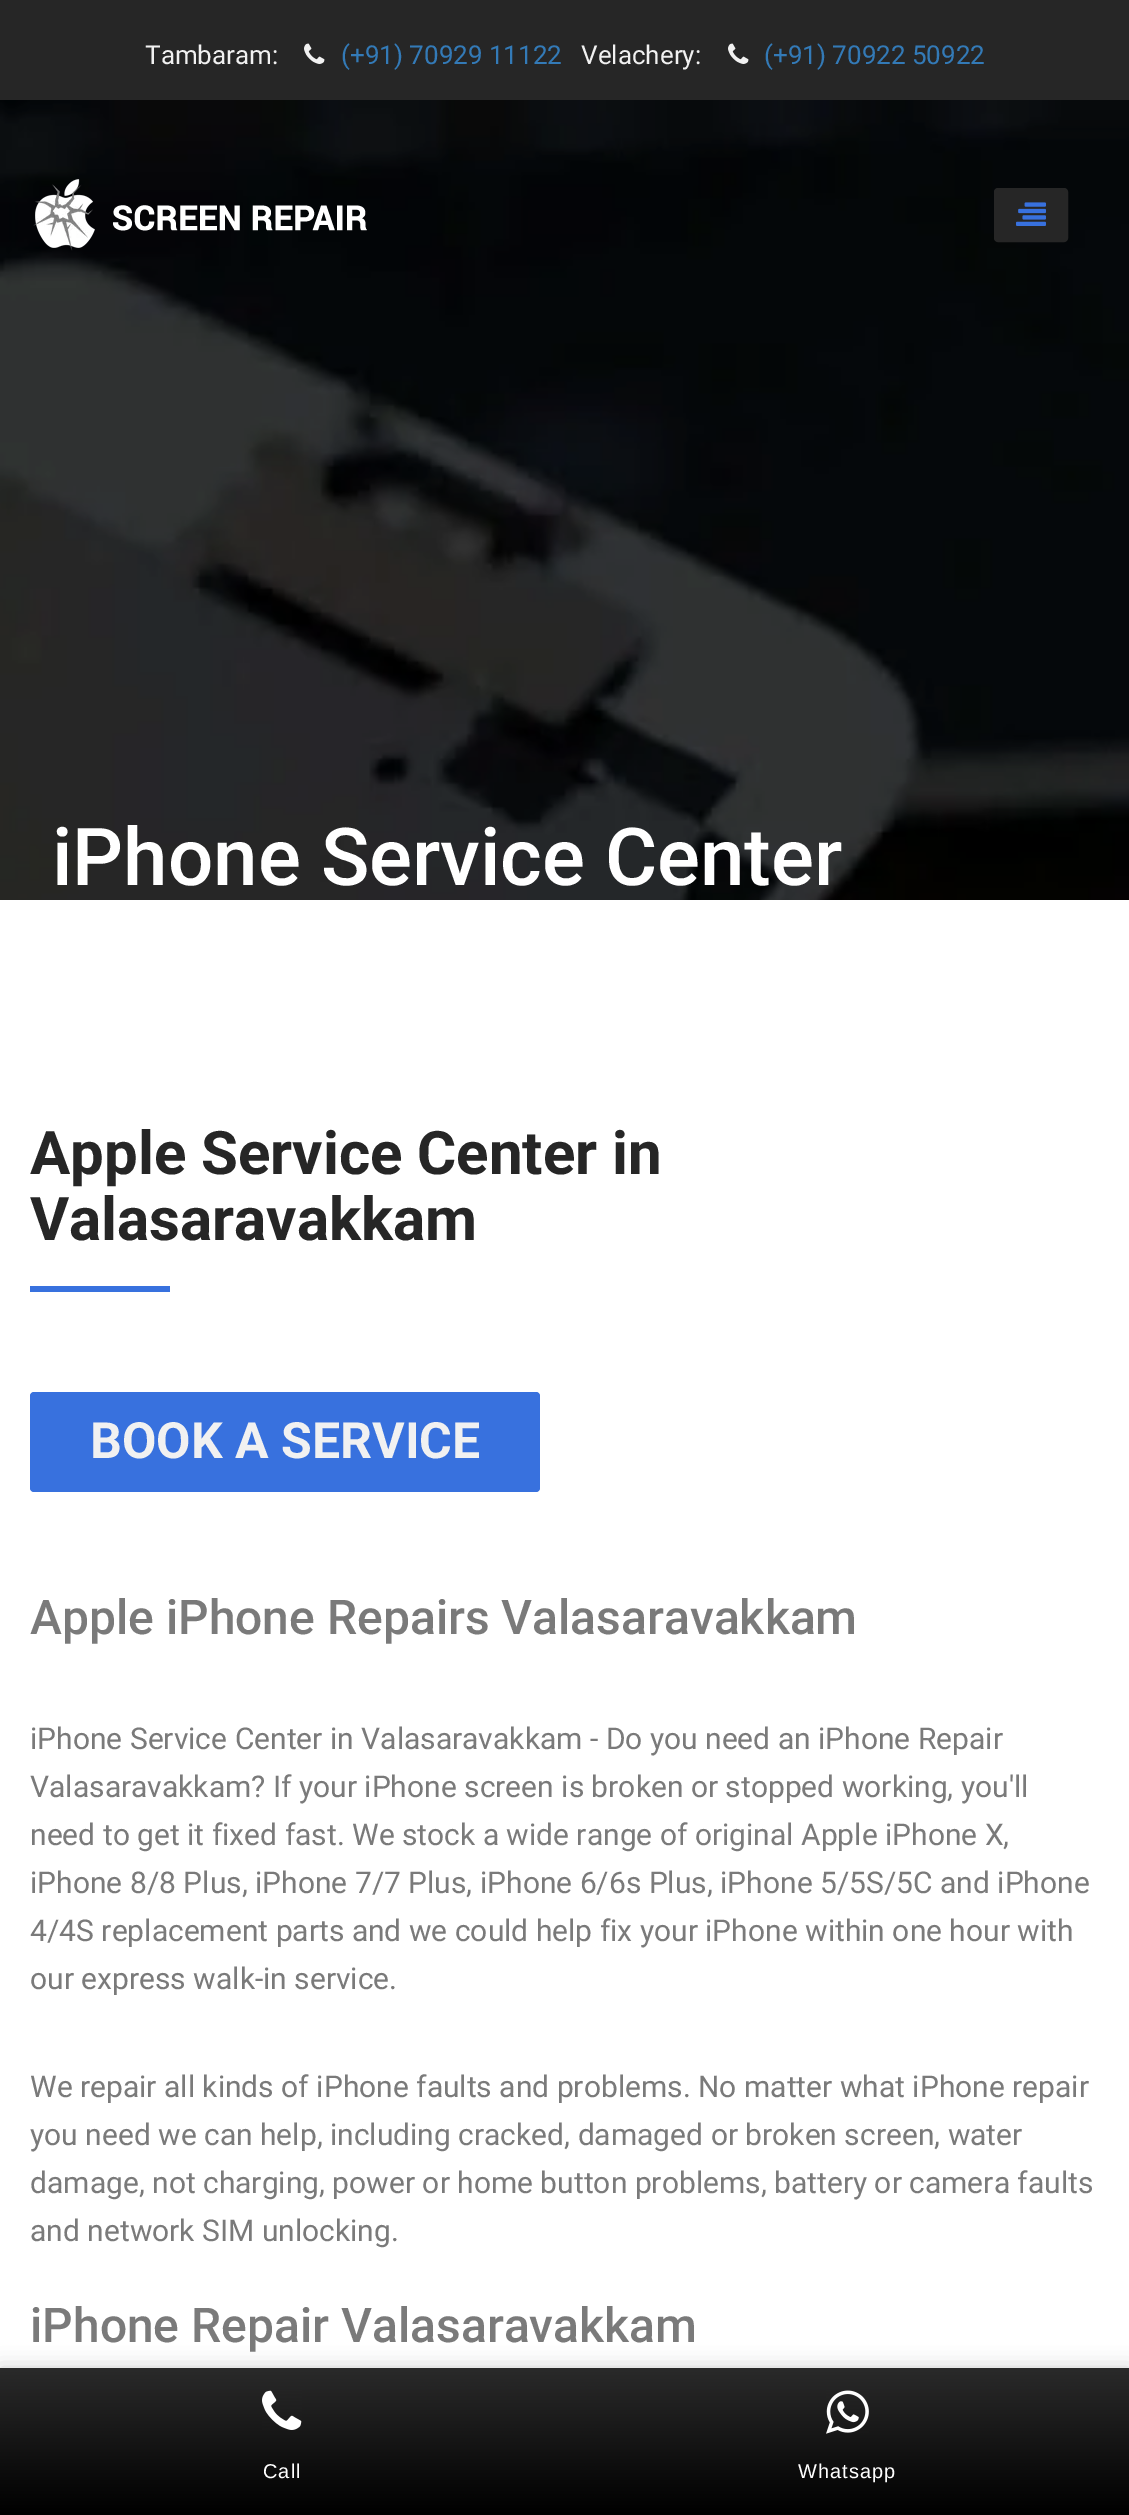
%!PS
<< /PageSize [1129 2515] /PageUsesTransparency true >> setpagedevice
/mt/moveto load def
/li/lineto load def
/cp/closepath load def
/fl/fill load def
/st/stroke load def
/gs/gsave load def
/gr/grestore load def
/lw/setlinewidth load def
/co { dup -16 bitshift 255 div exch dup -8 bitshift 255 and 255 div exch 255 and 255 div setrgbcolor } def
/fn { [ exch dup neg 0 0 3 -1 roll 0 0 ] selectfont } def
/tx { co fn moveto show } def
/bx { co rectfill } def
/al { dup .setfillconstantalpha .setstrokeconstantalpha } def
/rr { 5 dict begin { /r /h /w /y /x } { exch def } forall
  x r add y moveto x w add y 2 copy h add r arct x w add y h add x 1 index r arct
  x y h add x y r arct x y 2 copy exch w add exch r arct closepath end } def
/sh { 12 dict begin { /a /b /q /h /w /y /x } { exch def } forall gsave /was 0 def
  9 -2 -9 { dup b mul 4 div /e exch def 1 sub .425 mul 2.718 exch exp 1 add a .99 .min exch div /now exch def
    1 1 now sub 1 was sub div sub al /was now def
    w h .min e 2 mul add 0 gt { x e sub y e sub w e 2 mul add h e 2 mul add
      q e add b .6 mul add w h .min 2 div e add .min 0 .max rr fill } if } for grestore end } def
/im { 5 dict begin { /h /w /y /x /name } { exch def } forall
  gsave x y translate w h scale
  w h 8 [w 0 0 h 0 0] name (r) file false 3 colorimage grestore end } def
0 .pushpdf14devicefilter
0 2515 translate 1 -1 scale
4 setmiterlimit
0 0 1129 2515 16#FFFFFF bx
0 0 1129 110 16#262626 bx
(media/1.raw) 304 43 21 21 im
(media/1.raw) 728 43 21 21 im
(media/4.raw) 0 100 1129 800 im
(media/2.raw) 33 179 334 72 im
995 189 72 52 3 rr gs fl gr
2 lw
st
(media/3.raw) 1016 202 30 24 im
30 1286 140 6 16#3871DE bx
30 1392 510 100 4 rr fl
16#CCCCCC co
0 2368 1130 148 0 10 1 sh
gs 0 2368 mt 1129 2368 li 1129 2515 li 0 2515 li cp clip newpath
<< /ShadingType 2 /ColorSpace /DeviceRGB /Coords [565 2368 565 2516] /Extend [true true] /Function << /FunctionType 2 /Domain [0 1] /C0 [.165 .165 .165] /C1 [0 0 0] /N 1 >> >> shfill gr
(media/5.raw) 262 2390 40 40 im
(media/6.raw) 826 2390 43 44 im
(Tambaram:) 145 64 /Roboto-Regular 26 16#F1F1F1 tx
(\(+91\) 70929 11122) 341 64 /Roboto-Regular 26 16#337AB7 tx
(Velachery:) 581 64 /Roboto-Regular 26 16#F1F1F1 tx
(\(+91\) 70922 50922) 764 64 /Roboto-Regular 26 16#337AB7 tx
(iPhone Service Center) 52 885 /Roboto-Medium 80 16#FFFFFF tx
(Apple Service Center in) 30 1174 /Roboto-Bold 60 16#262626 tx
(Valasaravakkam) 30 1240 /Roboto-Bold 60 16#262626 tx
(BOOK A SERVICE) 90 1458 /Roboto-Bold 50 16#F1F1F1 tx
(Apple iPhone Repairs Valasaravakkam) 30 1634 /Roboto-Medium 48 16#7A7A7A tx
(iPhone Service Center in Valasaravakkam - Do you need an iPhone Repair) 30 1749 /Roboto-Regular 30 16#7A7A7A tx
(Valasaravakkam? If your iPhone screen is broken or stopped working, you'll) 30 1797 /Roboto-Regular 30 16#7A7A7A tx
(need to get it fixed fast. We stock a wide range of original Apple iPhone X,) 30 1845 /Roboto-Regular 30 16#7A7A7A tx
(iPhone 8/8 Plus, iPhone 7/7 Plus, iPhone 6/6s Plus, iPhone 5/5S/5C and iPhone) 30 1893 /Roboto-Regular 30 16#7A7A7A tx
(4/4S replacement parts and we could help fix your iPhone within one hour with) 30 1941 /Roboto-Regular 30 16#7A7A7A tx
(our express walk-in service.) 30 1989 /Roboto-Regular 30 16#7A7A7A tx
(We repair all kinds of iPhone faults and problems. No matter what iPhone repair) 30 2097 /Roboto-Regular 30 16#7A7A7A tx
(you need we can help, including cracked, damaged or broken screen, water) 30 2145 /Roboto-Regular 30 16#7A7A7A tx
(damage, not charging, power or home button problems, battery or camera faults) 30 2193 /Roboto-Regular 30 16#7A7A7A tx
(and network SIM unlocking.) 30 2241 /Roboto-Regular 30 16#7A7A7A tx
(iPhone Repair Valasaravakkam) 30 2342 /Roboto-Medium 48 16#7A7A7A tx
/LiberationSans-Regular 20 fn
16#FFFFFF co
263 2478 mt 1 0 (Call) ashow
798 2478 mt 1 0 (Whatsapp) ashow
.poppdf14devicefilter showpage
